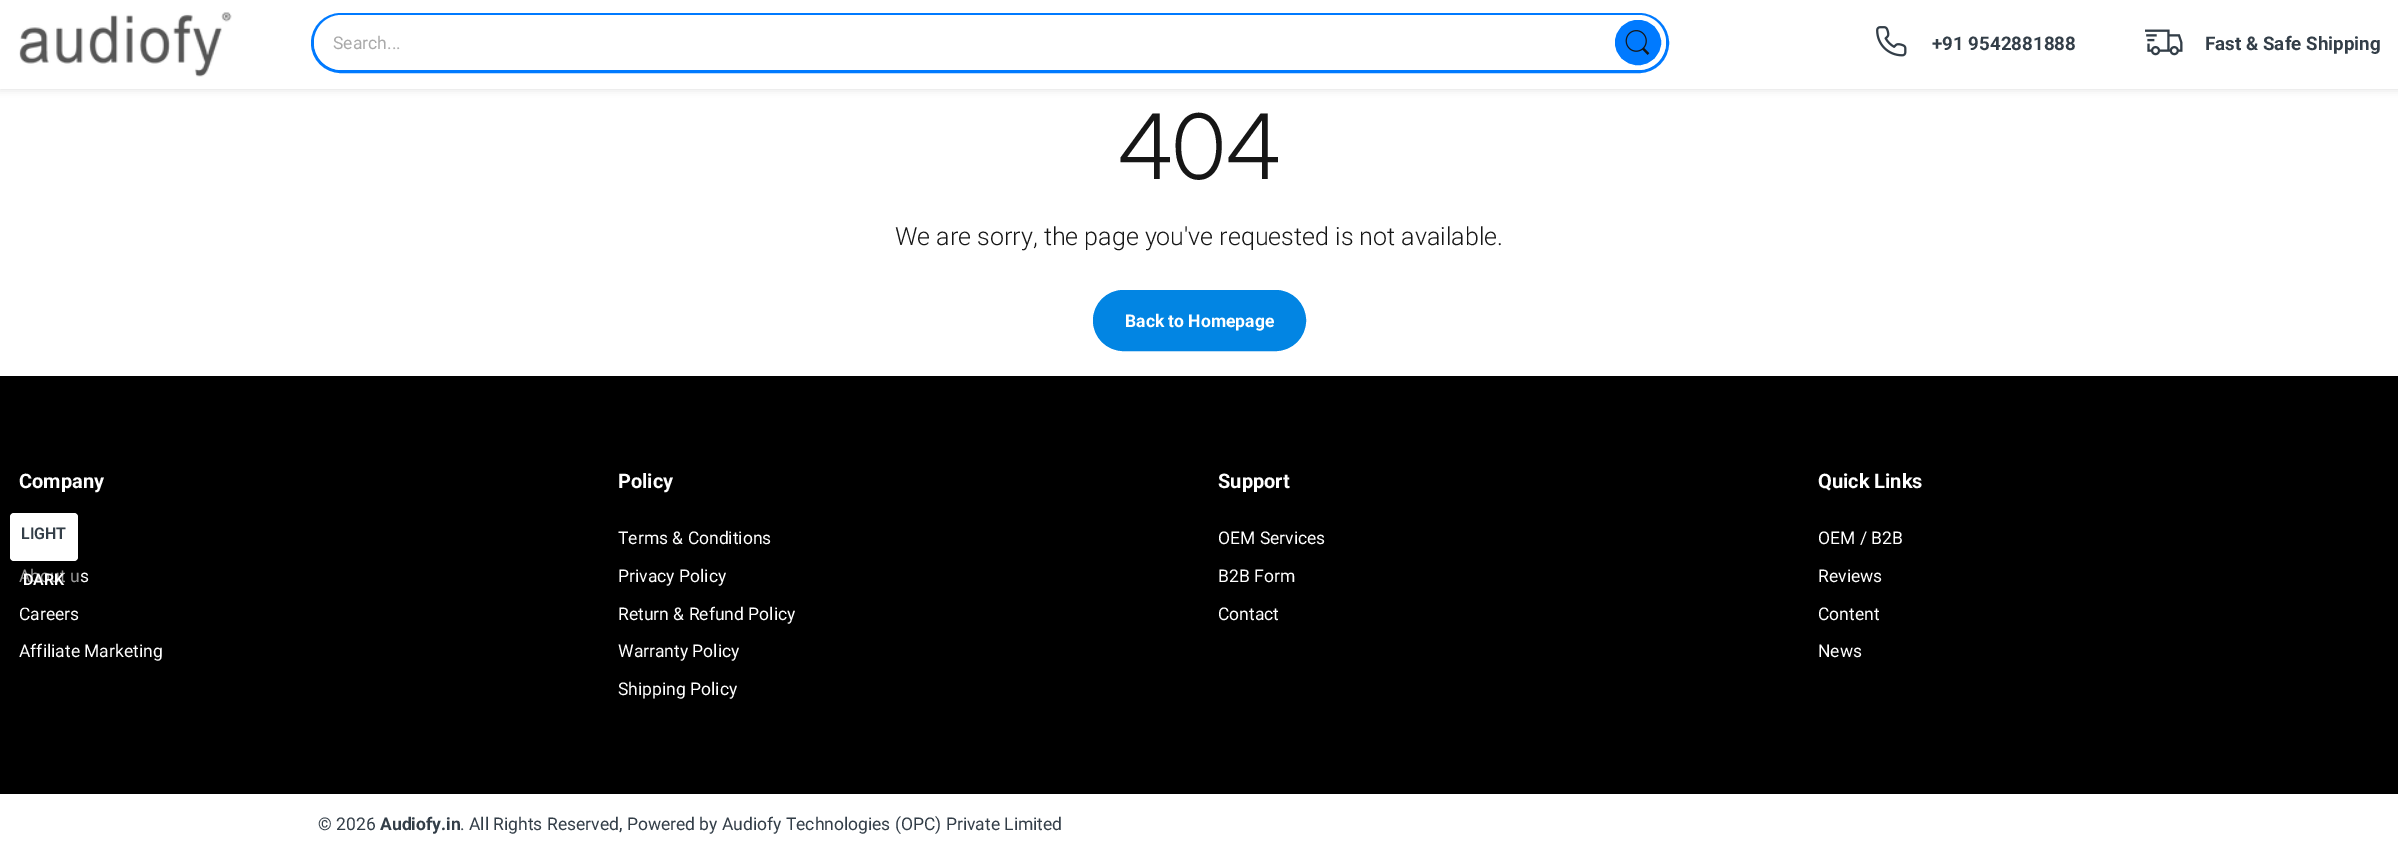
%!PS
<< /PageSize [2398 853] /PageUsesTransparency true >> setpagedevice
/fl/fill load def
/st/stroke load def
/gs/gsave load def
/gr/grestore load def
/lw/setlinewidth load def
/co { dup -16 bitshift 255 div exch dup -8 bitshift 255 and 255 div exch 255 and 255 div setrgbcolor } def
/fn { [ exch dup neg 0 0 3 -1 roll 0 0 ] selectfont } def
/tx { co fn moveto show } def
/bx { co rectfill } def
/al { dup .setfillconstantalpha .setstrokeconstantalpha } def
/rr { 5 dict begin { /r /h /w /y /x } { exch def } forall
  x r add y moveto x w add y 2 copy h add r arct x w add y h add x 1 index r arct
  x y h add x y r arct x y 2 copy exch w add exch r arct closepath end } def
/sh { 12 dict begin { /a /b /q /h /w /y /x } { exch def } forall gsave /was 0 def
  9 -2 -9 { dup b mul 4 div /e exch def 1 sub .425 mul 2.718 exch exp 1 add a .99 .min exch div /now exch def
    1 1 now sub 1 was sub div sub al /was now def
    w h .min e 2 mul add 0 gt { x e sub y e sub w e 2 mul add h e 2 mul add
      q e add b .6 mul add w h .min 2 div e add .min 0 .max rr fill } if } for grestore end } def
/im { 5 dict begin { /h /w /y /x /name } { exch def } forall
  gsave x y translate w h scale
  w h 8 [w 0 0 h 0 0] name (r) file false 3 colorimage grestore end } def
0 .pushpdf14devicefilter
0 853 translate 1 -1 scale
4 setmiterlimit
0 0 2398 853 16#FFFFFF bx
16#202124 co
0 0 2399 89 0 4 .15 sh
0 0 2398 89 16#FFFFFF bx
(media/1.raw) 19 12 213 65 im
16#007AFF co
3 lw
312.5 14.5 1355 57 28.5 rr st
16#FFFFFF co
314 15 1352 55 27.5 rr fl
16#007AFF co
1615.5 20.5 45 44 22 rr gs fl gr
1 lw
st
(media/2.raw) 1625 30 25 25 im
(media/3.raw) 1876 26 31 31 im
(media/4.raw) 2145 29 38 27 im
16#0285E3 co
1093.5 290.5 212 60 30 rr gs fl gr
st
0 376 2398 418 16#000000 bx
(Search...) 333 49 /Roboto-Regular 17.5 16#A9A9A9 tx
(+91 9542881888) 1932 50 /Roboto-Bold 18.75 16#333E48 tx
(Fast & Safe Shipping) 2205 50 /Roboto-Bold 18.75 16#333E48 tx
(404) 1118 179 /Inter-Light 90 16#161616 tx
(We are sorry, the page you've requested is not available.) 895 245 /Roboto-Light 25 16#161616 tx
(Back to Homepage) 1125 327 /Roboto-Bold 17.5 16#FFFFFF tx
(Company) 19 488 /Roboto-Bold 20 16#FFFFFF tx
(About us) 19 582 /Roboto-Regular 17.5 16#FFFFFF tx
(Careers) 19 620 /Roboto-Regular 17.5 16#FFFFFF tx
(Affiliate Marketing) 19 657 /Roboto-Regular 17.5 16#FFFFFF tx
(Policy) 618 488 /Roboto-Bold 20 16#FFFFFF tx
(Terms & Conditions) 618 544 /Roboto-Regular 17.5 16#FFFFFF tx
(Privacy Policy) 618 582 /Roboto-Regular 17.5 16#FFFFFF tx
(Return & Refund Policy) 618 620 /Roboto-Regular 17.5 16#FFFFFF tx
(Warranty Policy) 618 657 /Roboto-Regular 17.5 16#FFFFFF tx
(Shipping Policy) 618 695 /Roboto-Regular 17.5 16#FFFFFF tx
(Support) 1218 488 /Roboto-Bold 20 16#FFFFFF tx
(OEM Services) 1218 544 /Roboto-Regular 17.5 16#FFFFFF tx
(B2B Form) 1218 582 /Roboto-Regular 17.5 16#FFFFFF tx
(Contact) 1218 620 /Roboto-Regular 17.5 16#FFFFFF tx
(Quick Links) 1818 488 /Roboto-Bold 20 16#FFFFFF tx
(OEM / B2B) 1818 544 /Roboto-Regular 17.5 16#FFFFFF tx
(Reviews) 1818 582 /Roboto-Regular 17.5 16#FFFFFF tx
(Content) 1818 620 /Roboto-Regular 17.5 16#FFFFFF tx
(News) 1818 657 /Roboto-Regular 17.5 16#FFFFFF tx
(© 2026) 318 830 /Roboto-Regular 17.5 16#333E48 tx
(Audiofy.in) 380 830 /Roboto-Bold 17.5 16#333E48 tx
(. All Rights Reserved, Powered by Audiofy Technologies \(OPC\) Private Limited) 460 830 /Roboto-Regular 17.5 16#333E48 tx
0.4 al
16#000000 co
6 509 75 99 4 rr fl
1 al
16#FFFFFF co
10 513 68 48 4 rr fl
(LIGHT) 21 539 /Roboto-SemiBold 16 16#333E48 tx
(DARK) 23 585 /Roboto-SemiBold 16 16#FFFFFF tx
.poppdf14devicefilter showpage
